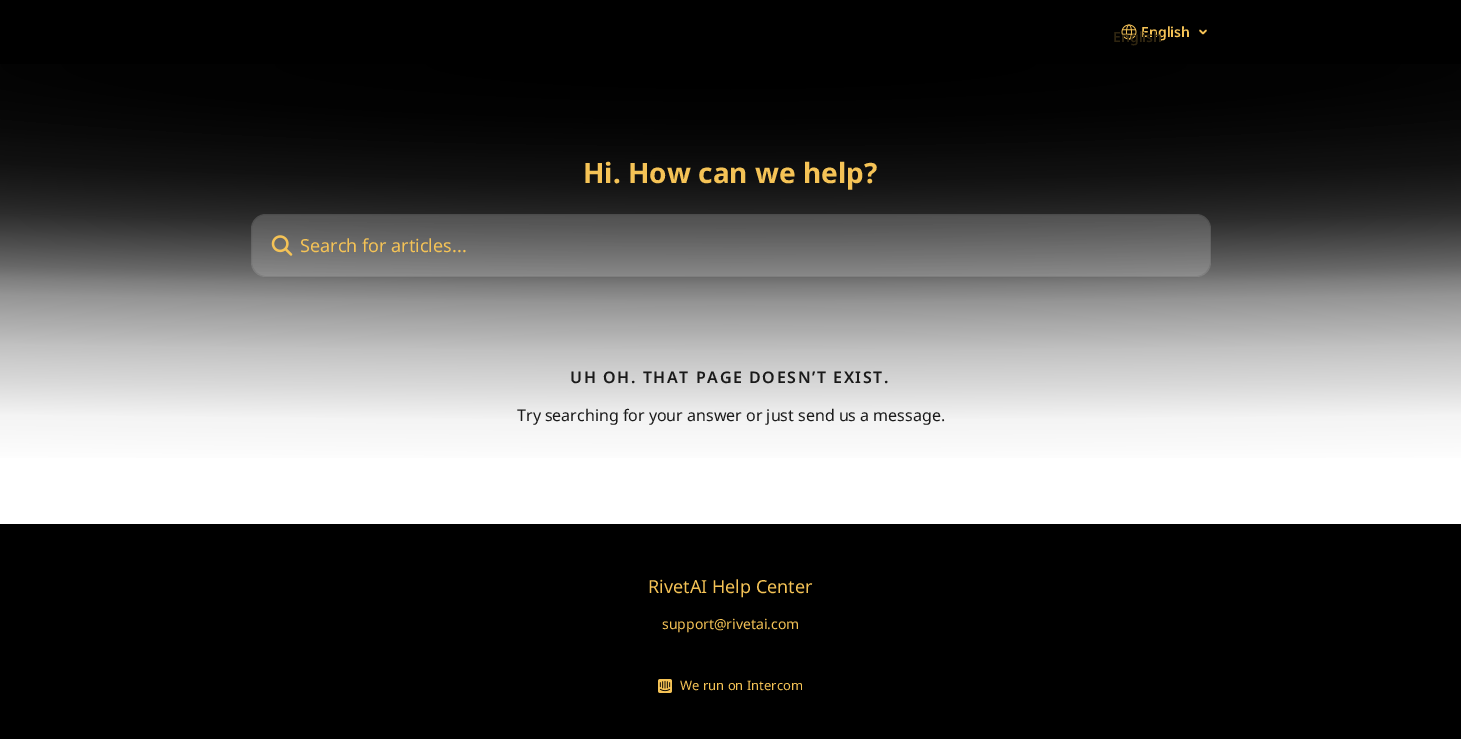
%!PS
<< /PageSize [1461 739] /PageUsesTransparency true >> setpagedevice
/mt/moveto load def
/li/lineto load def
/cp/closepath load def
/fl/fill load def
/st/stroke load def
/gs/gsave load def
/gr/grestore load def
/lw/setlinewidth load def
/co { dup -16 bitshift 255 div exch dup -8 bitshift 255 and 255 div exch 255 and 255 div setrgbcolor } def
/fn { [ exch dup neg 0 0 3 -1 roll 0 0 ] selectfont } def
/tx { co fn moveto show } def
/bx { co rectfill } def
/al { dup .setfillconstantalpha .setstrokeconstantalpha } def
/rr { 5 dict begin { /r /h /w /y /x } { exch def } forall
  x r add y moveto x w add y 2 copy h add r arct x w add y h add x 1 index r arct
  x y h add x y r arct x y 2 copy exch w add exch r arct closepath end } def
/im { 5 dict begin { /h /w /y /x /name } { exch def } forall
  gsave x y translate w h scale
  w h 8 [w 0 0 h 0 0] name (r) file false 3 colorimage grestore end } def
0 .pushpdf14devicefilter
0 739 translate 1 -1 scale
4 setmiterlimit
0 0 1461 739 16#FFFFFF bx
0 0 1461 64 16#000000 bx
(media/1.raw) 1121 24 16 16 im
16#F5C256 co
1.5 lw
1 setlinecap
1 setlinejoin
1200 30.5 mt 1203 33.5 li 1206 30.5 li st
gs 0 64 mt 1461 64 li 1461 458 li 0 458 li cp clip newpath 731 64 translate 4871 405 scale
<< /ShadingType 3 /ColorSpace /DeviceRGB /Coords [0 0 0 0 0 1] /Extend [true true] /Function << /FunctionType 3 /Domain [0 1] /Functions [<< /FunctionType 2 /Domain [0 1] /C0 [0 0 0] /C1 [.008 .008 .008] /N 1 >> << /FunctionType 2 /Domain [0 1] /C0 [.008 .008 .008] /C1 [.035 .035 .035] /N 1 >> << /FunctionType 2 /Domain [0 1] /C0 [.035 .035 .035] /C1 [.071 .071 .071] /N 1 >> << /FunctionType 2 /Domain [0 1] /C0 [.071 .071 .071] /C1 [.122 .122 .122] /N 1 >> << /FunctionType 2 /Domain [0 1] /C0 [.122 .122 .122] /C1 [.18 .18 .18] /N 1 >> << /FunctionType 2 /Domain [0 1] /C0 [.18 .18 .18] /C1 [.251 .251 .251] /N 1 >> << /FunctionType 2 /Domain [0 1] /C0 [.251 .251 .251] /C1 [.329 .329 .329] /N 1 >> << /FunctionType 2 /Domain [0 1] /C0 [.329 .329 .329] /C1 [.408 .408 .408] /N 1 >> << /FunctionType 2 /Domain [0 1] /C0 [.408 .408 .408] /C1 [.494 .494 .494] /N 1 >> << /FunctionType 2 /Domain [0 1] /C0 [.494 .494 .494] /C1 [.584 .584 .584] /N 1 >> << /FunctionType 2 /Domain [0 1] /C0 [.584 .584 .584] /C1 [.671 .671 .671] /N 1 >> << /FunctionType 2 /Domain [0 1] /C0 [.671 .671 .671] /C1 [.761 .761 .761] /N 1 >> << /FunctionType 2 /Domain [0 1] /C0 [.761 .761 .761] /C1 [.843 .843 .843] /N 1 >> << /FunctionType 2 /Domain [0 1] /C0 [.843 .843 .843] /C1 [.957 .957 .957] /N 1 >> << /FunctionType 2 /Domain [0 1] /C0 [.957 .957 .957] /C1 [1 1 1] /N 1 >>] /Bounds [.12 .21 .29 .35 .4 .44 .48 .52 .55 .59 .65 .71 .79 .88] /Encode [0 1 0 1 0 1 0 1 0 1 0 1 0 1 0 1 0 1 0 1 0 1 0 1 0 1 0 1 0 1] >> >> shfill gr
0.2 al
16#FFFFFF co
251 214 960 63 15 rr fl
0.08 al
16#000000 co
1 lw
0 setlinecap
0 setlinejoin
251.5 214.5 959 62 14.5 rr st
1 al
(media/2.raw) 271 235 22 21 im
0 524 1461 215 16#000000 bx
(media/3.raw) 658 679 14 14 im
(English) 1141 37 /NotoSans-SemiBold 14 16#F5C356 tx
(English) 1113 42 /NotoSans-SemiBold 14 16#2F2510 tx
(Hi. How can we help?) 583 183 /NotoSans-Bold 28 16#F5C356 tx
(Search for articles...) 300 252 /NotoSans-Regular 18 16#F5C356 tx
/NotoSans-SemiBold 16 fn
16#1A1A1A co
570 383 mt 1.6 0 (UH OH. THAT PAGE DOESN’T EXIST.) ashow
(Try searching for your answer or just send us a message.) 517 421 /NotoSans-Regular 16 16#1A1A1A tx
(RivetAI Help Center) 648 593 /NotoSans-Regular 18 16#F5C356 tx
(support@rivetai.com) 662 629 /NotoSans-Regular 14 16#F5C356 tx
(We run on Intercom) 680 690 /NotoSans-Regular 13 16#F5C356 tx
.poppdf14devicefilter showpage
